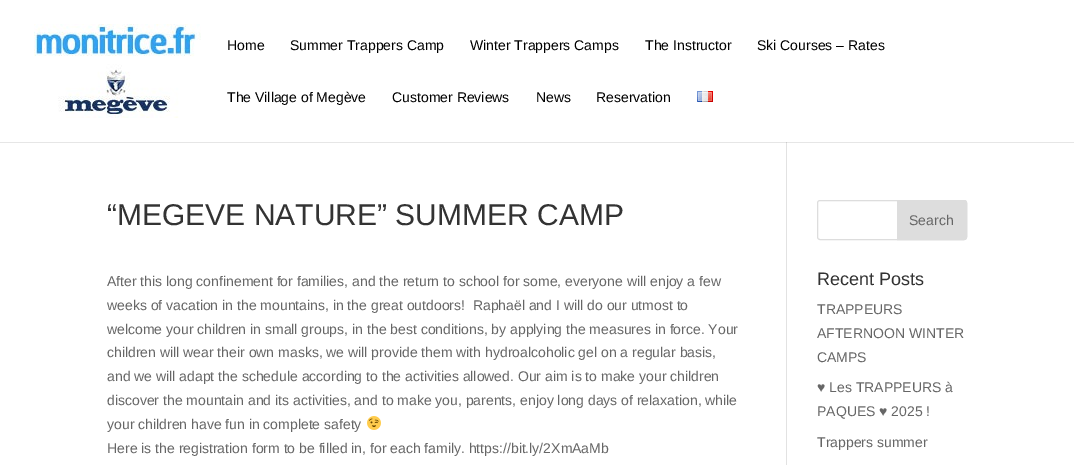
%!PS
<< /PageSize [1074 465] >> setpagedevice
/mt/moveto load def
/li/lineto load def
/ct/curveto load def
/cp/closepath load def
/fl/fill load def
/st/stroke load def
/gs/gsave load def
/gr/grestore load def
/co { dup -16 bitshift 255 div exch dup -8 bitshift 255 and 255 div exch 255 and 255 div setrgbcolor } def
/fn { [ exch dup neg 0 0 3 -1 roll 0 0 ] selectfont } def
/tx { co fn moveto show } def
/bx { co rectfill } def
/rr { 5 dict begin { /r /h /w /y /x } { exch def } forall
  x r add y moveto x w add y 2 copy h add r arct x w add y h add x 1 index r arct
  x y h add x y r arct x y 2 copy exch w add exch r arct closepath end } def
/im { 5 dict begin { /h /w /y /x /name } { exch def } forall
  gsave x y translate w h scale
  w h 8 [w 0 0 h 0 0] name (r) file false 3 colorimage grestore end } def
0 465 translate 1 -1 scale
4 setmiterlimit
0 0 1074 465 16#FFFFFF bx
0 142 1074 1 16#E6E6E6 bx
(media/1.raw) 34 24 167 94 im
(media/2.raw) 697 91 16 11 im
786 142 1 323 16#E2E2E2 bx
786 142 1 1 16#CBCBCB bx
(media/3.raw) 367 416 14 14 im
16#DDDDDD co
817.5 200.5 149 39 2.5 rr st
897.5 200.5 mt 964 200.5 li 965.5 200.5 966.5 201.5 966.5 203 ct 966.5 237 li 966.5 238.5 965.5 239.5 964 239.5 ct 897.5 239.5 li cp gs fl gr
st
(Home) 227 50 /LiberationSans-Regular 14 16#000000 tx
(Summer Trappers Camp) 290 50 /LiberationSans-Regular 14 16#000000 tx
(Winter Trappers Camps) 470 50 /LiberationSans-Regular 14 16#000000 tx
(The Instructor) 645 50 /LiberationSans-Regular 14 16#000000 tx
(Ski Courses – Rates) 757 50 /LiberationSans-Regular 14 16#000000 tx
(The Village of Megève) 227 102 /LiberationSans-Regular 14 16#000000 tx
(Customer Reviews) 392 102 /LiberationSans-Regular 14 16#000000 tx
(News) 536 102 /LiberationSans-Regular 14 16#000000 tx
(Reservation) 596 102 /LiberationSans-Regular 14 16#000000 tx
(“MEGEVE NATURE” SUMMER CAMP) 107 225 /LiberationSans-Regular 30 16#333333 tx
(After this long confinement for families, and the return to school for some, everyone will enjoy a few) 107 286 /LiberationSans-Regular 14 16#666666 tx
(weeks of vacation in the mountains, in the great outdoors!  Raphaël and I will do our utmost to) 107 310 /LiberationSans-Regular 14 16#666666 tx
(welcome your children in small groups, in the best conditions, by applying the measures in force. Your) 107 334 /LiberationSans-Regular 14 16#666666 tx
(children will wear their own masks, we will provide them with hydroalcoholic gel on a regular basis,) 107 357 /LiberationSans-Regular 14 16#666666 tx
(and we will adapt the schedule according to the activities allowed. Our aim is to make your children) 107 381 /LiberationSans-Regular 14 16#666666 tx
(discover the mountain and its activities, and to make you, parents, enjoy long days of relaxation, while) 107 405 /LiberationSans-Regular 14 16#666666 tx
(your children have fun in complete safety) 107 429 /LiberationSans-Regular 14 16#666666 tx
(Here is the registration form to be filled in, for each family. https://bit.ly/2XmAaMb) 107 453 /LiberationSans-Regular 14 16#666666 tx
(Search) 909 225 /LiberationSans-Regular 14 16#666666 tx
(Recent Posts) 817 285 /LiberationSans-Regular 18 16#333333 tx
(TRAPPEURS) 817 314 /LiberationSans-Regular 14 16#666666 tx
(AFTERNOON WINTER) 817 338 /LiberationSans-Regular 14 16#666666 tx
(CAMPS) 817 362 /LiberationSans-Regular 14 16#666666 tx
(♥ Les TRAPPEURS à) 817 392 /LiberationSans-Regular 14 16#666666 tx
(PAQUES ♥ 2025 !) 817 416 /LiberationSans-Regular 14 16#666666 tx
(Trappers summer) 817 447 /LiberationSans-Regular 14 16#666666 tx
showpage
